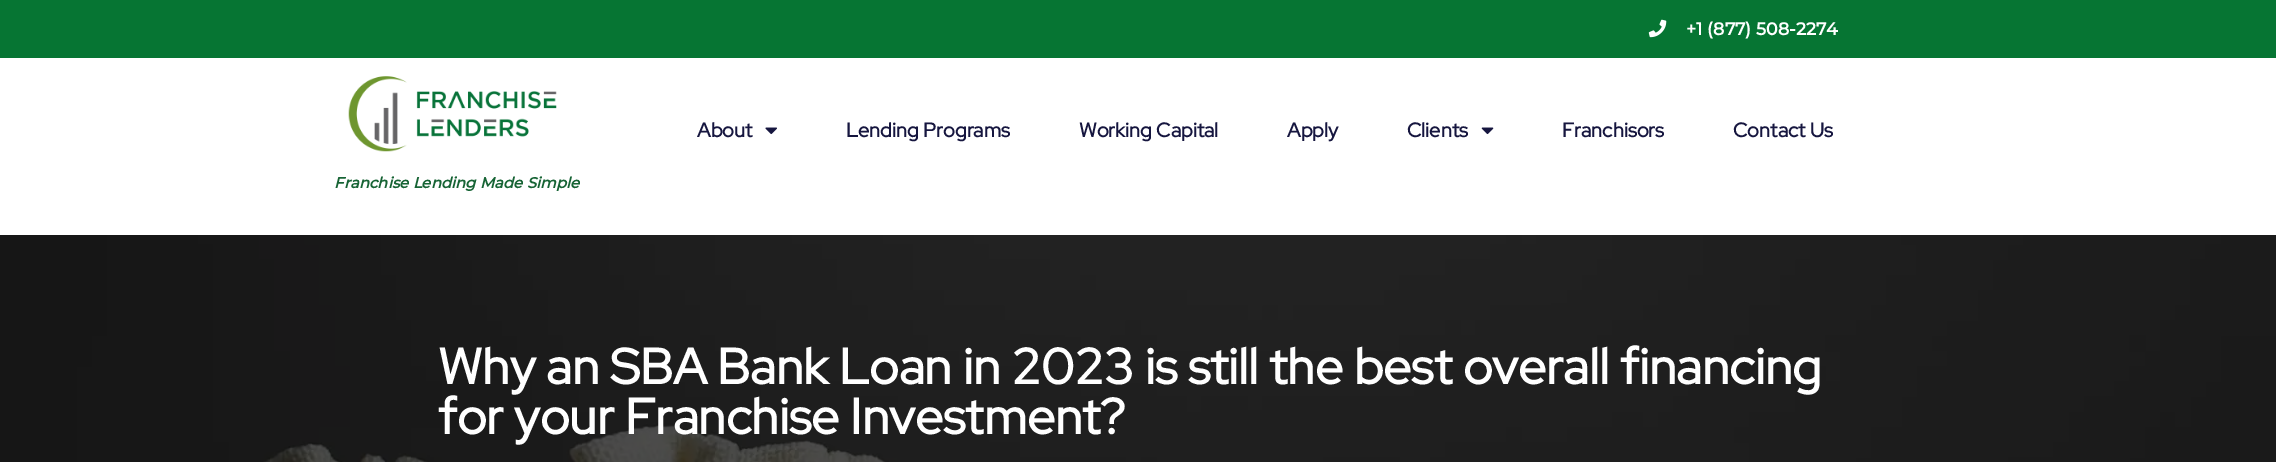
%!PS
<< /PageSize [2276 462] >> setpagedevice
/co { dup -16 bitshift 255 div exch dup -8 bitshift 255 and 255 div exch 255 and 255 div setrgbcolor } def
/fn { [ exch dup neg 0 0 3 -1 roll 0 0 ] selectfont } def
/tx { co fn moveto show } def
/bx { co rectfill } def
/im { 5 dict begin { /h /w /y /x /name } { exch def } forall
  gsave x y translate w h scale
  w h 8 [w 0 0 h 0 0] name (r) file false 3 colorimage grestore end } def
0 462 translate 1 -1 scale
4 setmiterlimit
0 0 2276 462 16#FFFFFF bx
0 0 2276 58 16#067533 bx
(media/1.raw) 1648 19 19 19 im
(media/2.raw) 765 127 12 8 im
(media/3.raw) 1481 127 13 8 im
(media/4.raw) 348 76 209 76 im
(media/5.raw) 0 235 2276 227 im
(+1 \(877\) 508-2274) 1686 35 /Montserrat-Bold 17.5 16#FFFFFF tx
(About) 697 137 /RedHatDisplay-Bold 20 16#16163F tx
(Lending Programs) 846 137 /RedHatDisplay-Bold 20 16#16163F tx
(Working Capital) 1079 137 /RedHatDisplay-Bold 20 16#16163F tx
(Apply) 1287 137 /RedHatDisplay-Bold 20 16#16163F tx
(Clients) 1407 137 /RedHatDisplay-Bold 20 16#16163F tx
(Franchisors) 1562 137 /RedHatDisplay-Bold 20 16#16163F tx
(Contact Us) 1733 137 /RedHatDisplay-Bold 20 16#16163F tx
(Franchise Lending Made Simple) 334 188 /Montserrat-BoldItalic 15 16#176435 tx
(Why an SBA Bank Loan in 2023 is still the best overall financing) 438 384 /RedHatDisplay-Bold 50 16#FFFFFF tx
(for your Franchise Investment?) 438 434 /RedHatDisplay-Bold 50 16#FFFFFF tx
showpage
